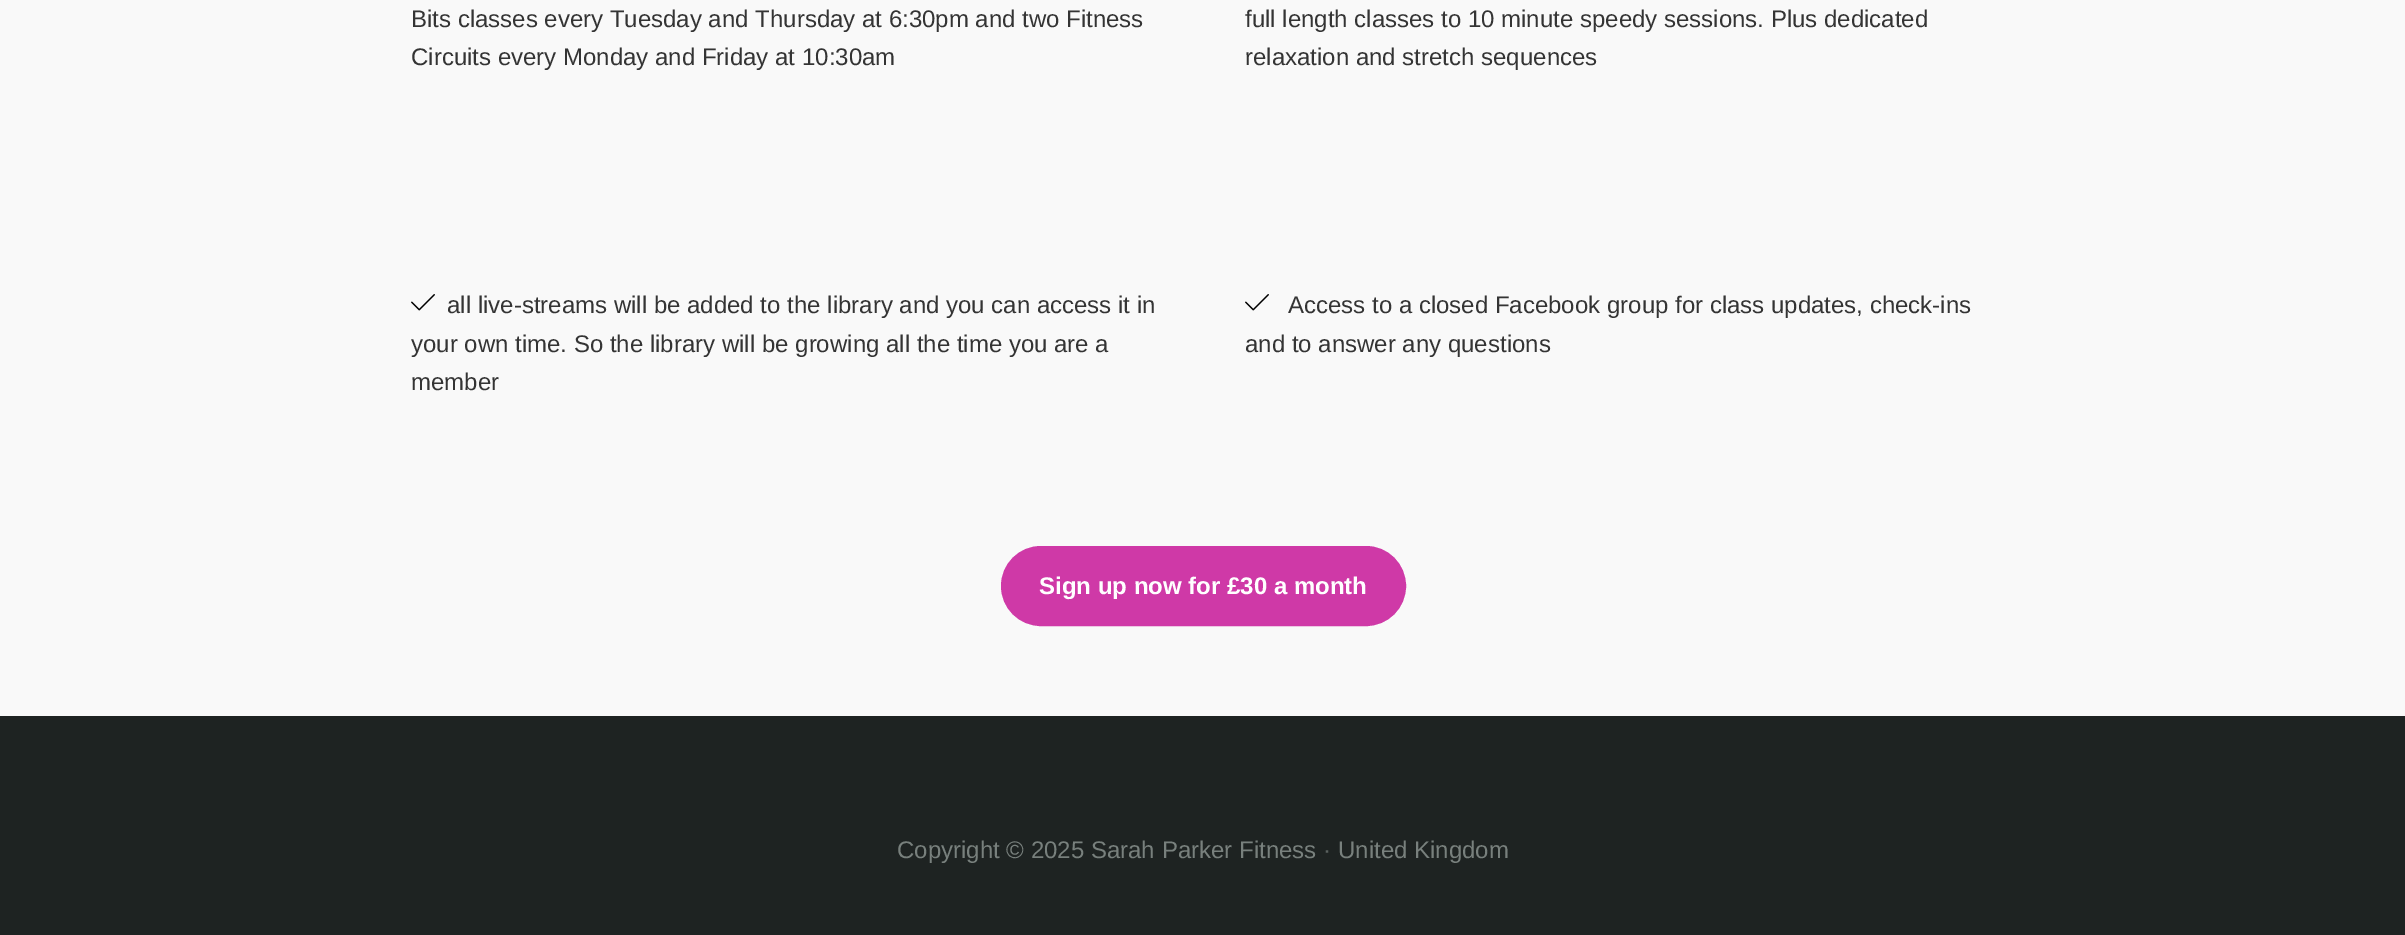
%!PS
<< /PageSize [2405 935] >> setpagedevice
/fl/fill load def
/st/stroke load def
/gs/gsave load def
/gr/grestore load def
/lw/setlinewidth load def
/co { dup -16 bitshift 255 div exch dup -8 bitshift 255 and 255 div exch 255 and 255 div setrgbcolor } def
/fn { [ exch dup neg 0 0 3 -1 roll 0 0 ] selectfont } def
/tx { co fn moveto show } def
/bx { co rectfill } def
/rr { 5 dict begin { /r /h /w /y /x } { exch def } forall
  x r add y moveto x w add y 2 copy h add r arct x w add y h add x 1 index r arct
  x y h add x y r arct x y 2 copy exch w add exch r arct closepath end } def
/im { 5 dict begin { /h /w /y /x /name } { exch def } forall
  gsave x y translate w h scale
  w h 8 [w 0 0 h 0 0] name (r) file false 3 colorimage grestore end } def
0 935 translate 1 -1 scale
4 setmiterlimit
0 0 2405 935 16#F9F9F9 bx
(media/1.raw) 411 294 24 17 im
(media/1.raw) 1245 294 24 17 im
16#CF39A7 co
1002.5 547.5 402 77 38.5 rr gs fl gr
3 lw
st
0 716 2405 219 16#1E2322 bx
(Bits classes every Tuesday and Thursday at 6:30pm and two Fitness) 411 27 /LiberationSans-Regular 24 16#343434 tx
(Circuits every Monday and Friday at 10:30am) 411 65 /LiberationSans-Regular 24 16#343434 tx
(full length classes to 10 minute speedy sessions. Plus dedicated) 1245 27 /LiberationSans-Regular 24 16#343434 tx
(relaxation and stretch sequences) 1245 65 /LiberationSans-Regular 24 16#343434 tx
(all live-streams will be added to the library and you can access it in) 447 313 /LiberationSans-Regular 24 16#343434 tx
(your own time. So the library will be growing all the time you are a) 411 352 /LiberationSans-Regular 24 16#343434 tx
(member) 411 390 /LiberationSans-Regular 24 16#343434 tx
(Access to a closed Facebook group for class updates, check-ins) 1288 313 /LiberationSans-Regular 24 16#343434 tx
(and to answer any questions) 1245 352 /LiberationSans-Regular 24 16#343434 tx
(Sign up now for £30 a month) 1039 594 /LiberationSans-Bold 24 16#FFFFFF tx
(Copyright © 2025 Sarah Parker Fitness) 897 858 /LiberationSans-Regular 24 16#78807D tx
(·) 1323 858 /LiberationSans-Regular 24 16#5A615F tx
(United Kingdom) 1338 858 /LiberationSans-Regular 24 16#78807D tx
showpage
